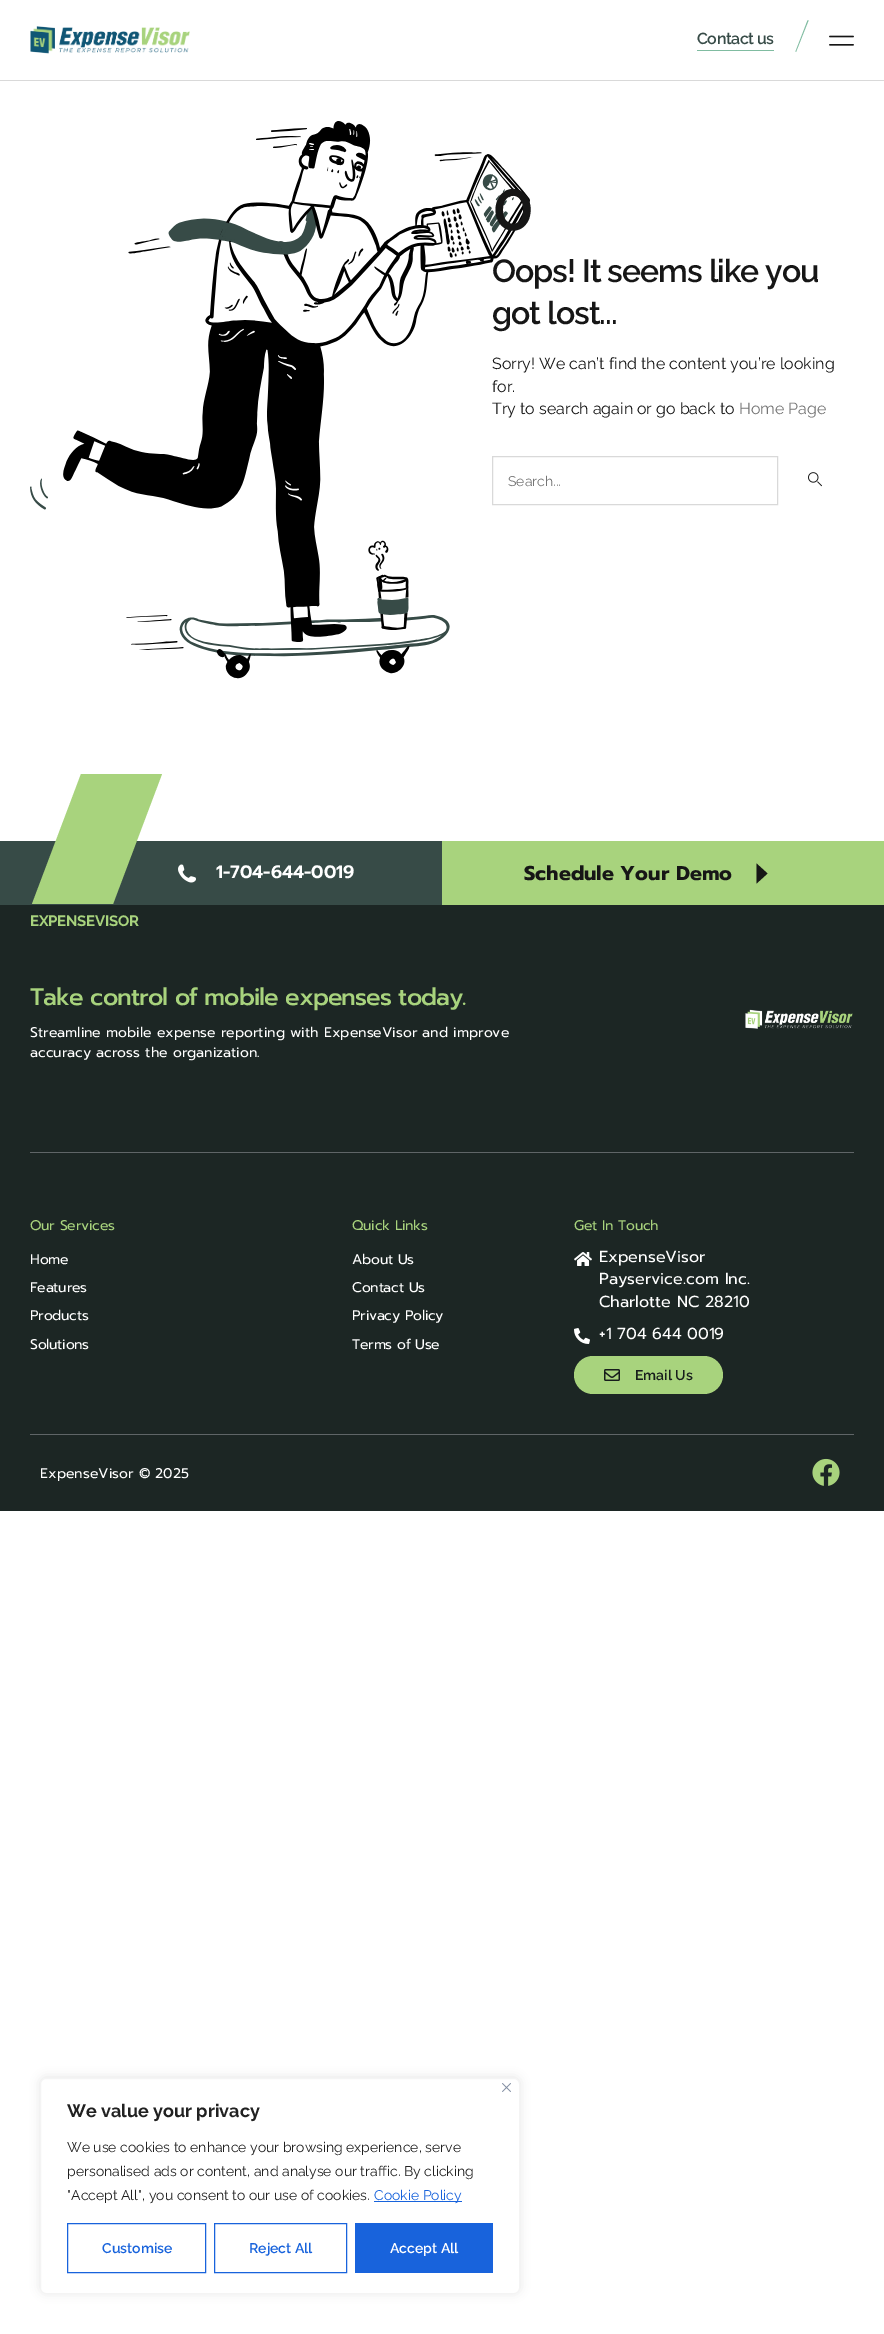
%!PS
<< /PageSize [884 2334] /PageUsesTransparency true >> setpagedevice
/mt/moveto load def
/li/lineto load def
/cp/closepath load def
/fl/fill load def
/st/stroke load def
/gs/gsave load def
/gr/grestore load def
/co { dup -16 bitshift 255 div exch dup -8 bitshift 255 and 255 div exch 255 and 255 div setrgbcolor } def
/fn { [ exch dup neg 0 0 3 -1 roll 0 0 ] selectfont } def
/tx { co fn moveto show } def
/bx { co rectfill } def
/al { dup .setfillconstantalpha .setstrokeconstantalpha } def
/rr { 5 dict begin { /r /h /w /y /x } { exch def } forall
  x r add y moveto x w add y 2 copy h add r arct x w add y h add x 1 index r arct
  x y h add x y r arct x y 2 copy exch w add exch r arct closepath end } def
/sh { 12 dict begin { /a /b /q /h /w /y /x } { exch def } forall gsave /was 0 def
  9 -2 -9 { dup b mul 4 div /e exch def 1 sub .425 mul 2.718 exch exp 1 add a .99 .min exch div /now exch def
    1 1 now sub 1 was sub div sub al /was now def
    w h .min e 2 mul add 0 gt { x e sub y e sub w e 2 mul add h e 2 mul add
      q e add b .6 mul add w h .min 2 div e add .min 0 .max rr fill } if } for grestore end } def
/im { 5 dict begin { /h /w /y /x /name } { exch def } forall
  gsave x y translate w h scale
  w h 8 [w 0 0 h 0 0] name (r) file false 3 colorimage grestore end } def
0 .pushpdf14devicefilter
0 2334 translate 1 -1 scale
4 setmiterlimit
0 0 884 2334 16#FFFFFF bx
(media/1.raw) 30 26 160 28 im
697 50 77 1 16#80BCA1 bx
808 20 mt 808.5 20.5 li 796 52 li 795.5 51.5 li 807.5 20.5 li cp fl
(media/2.raw) 829 35 25 11 im
0 80 884 1 16#D9D9D9 bx
(media/3.raw) 30 121 500 558 im
492.5 456.5 285 48 rectstroke
(media/4.raw) 808 472 14 15 im
0 841 442 64 16#374B47 bx
442 841 442 64 16#A8D37D bx
81 774 mt 32 904 li 113 904 li 162 774 li cp fl
(media/5.raw) 178 864 18 19 im
16#161616 co
767.5 873.5 mt 756.5 883.5 li 756.5 863.5 li cp fl
0 905 884 606 16#1C2624 bx
30 1152 824 1 16#5F6567 bx
30 1434 824 1 16#5F6567 bx
(media/6.raw) 745 1009 108 20 im
(media/7.raw) 574 1252 18 14 im
(media/8.raw) 574 1328 16 16 im
16#A8D37D co
574 1356 149 38 19 rr fl
(media/9.raw) 604 1369 16 12 im
(media/10.raw) 812 1458 28 28 im
16#ACABAB co
40 2077 480 216 6 5 .3 sh
16#FFFFFF co
40.5 2078.5 479 215 5.5 rr gs fl gr
16#F4F4F4 co
st
(media/11.raw) 502 2083 9 9 im
374 2201 88 1 16#1863DC bx
67.5 2223.5 138 49 rectstroke
214.5 2223.5 132 49 rectstroke
355 2223 138 50 16#1863DC bx
/Raleway-SemiBold 16 fn
16#374B47 co
697 44 mt -.5 0 (Contact us) ashow
(0) 492 230 /Raleway-SemiBold 69 16#161616 tx
/Raleway-SemiBold 32 fn
492 282 mt -1 0 (Oops! It seems like you) ashow
492 324 mt -1 0 (got lost...) ashow
(Sorry! We can’t find the content you’re looking) 492 369 /Raleway-Regular 16 16#161616 tx
(for.) 492 392 /Raleway-Regular 16 16#161616 tx
(Try to search again or go back to) 492 414 /Raleway-Regular 16 16#161616 tx
(Home Page) 739 414 /Raleway-Regular 16 16#757575 tx
(Search...) 508 486 /Raleway-Regular 14 16#757575 tx
(1-704-644-0019) 216 878 /Prompt-SemiBold 18 16#FFFFFF tx
(Schedule Your Demo) 524 880 /Prompt-Bold 20 16#161616 tx
/Raleway-Bold 15 fn
16#A8D37D co
30 926 mt -.25 0 (EXPENSEVISOR) ashow
/Prompt-Medium 24 fn
30 1005 mt -1 0 (Take control of mobile expenses today.) ashow
(Streamline mobile expense reporting with ExpenseVisor and improve) 30 1037 /Prompt-Regular 14 16#FFFFFF tx
(accuracy across the organization.) 30 1057 /Prompt-Regular 14 16#FFFFFF tx
16#A8D37D co
30 1230 mt -.25 0 (Our Services) ashow
16#FFFFFF co
30 1264 mt -.25 0 (Home) ashow
30 1292 mt -.25 0 (Features) ashow
30 1320 mt -.25 0 (Products) ashow
30 1349 mt -.25 0 (Solutions) ashow
16#A8D37D co
352 1230 mt -.25 0 (Quick Links) ashow
16#FFFFFF co
352 1264 mt -.25 0 (About Us) ashow
352 1292 mt -.25 0 (Contact Us) ashow
352 1320 mt -.25 0 (Privacy Policy) ashow
352 1349 mt -.25 0 (Terms of Use) ashow
16#A8D37D co
574 1230 mt -.25 0 (Get In Touch) ashow
(ExpenseVisor) 599 1262 /Prompt-Regular 16 16#FFFFFF tx
(Payservice.com Inc.) 599 1284 /Prompt-Regular 16 16#FFFFFF tx
(Charlotte NC 28210) 599 1307 /Prompt-Regular 16 16#FFFFFF tx
(+1 704 644 0019) 599 1339 /Prompt-Regular 16 16#FFFFFF tx
(Email Us) 635 1380 /Raleway-SemiBold 14 16#171D1C tx
(ExpenseVisor © 2025) 40 1478 /Prompt-Regular 14 16#FFFFFF tx
(We value your privacy) 67 2117 /Raleway-Bold 18 16#212121 tx
(We use cookies to enhance your browsing experience, serve) 67 2152 /Raleway-Regular 14 16#212121 tx
(personalised ads or content, and analyse our traffic. By clicking) 67 2176 /Raleway-Regular 14 16#212121 tx
("Accept All", you consent to our use of cookies.) 67 2200 /Raleway-Regular 14 16#212121 tx
(Cookie Policy) 374 2200 /Raleway-Regular 14 16#1863DC tx
(Customise) 102 2253 /Raleway-SemiBold 14 16#1863DC tx
(Reject All) 249 2253 /Raleway-SemiBold 14 16#1863DC tx
(Accept All) 390 2253 /Raleway-SemiBold 14 16#FFFFFF tx
.poppdf14devicefilter showpage
